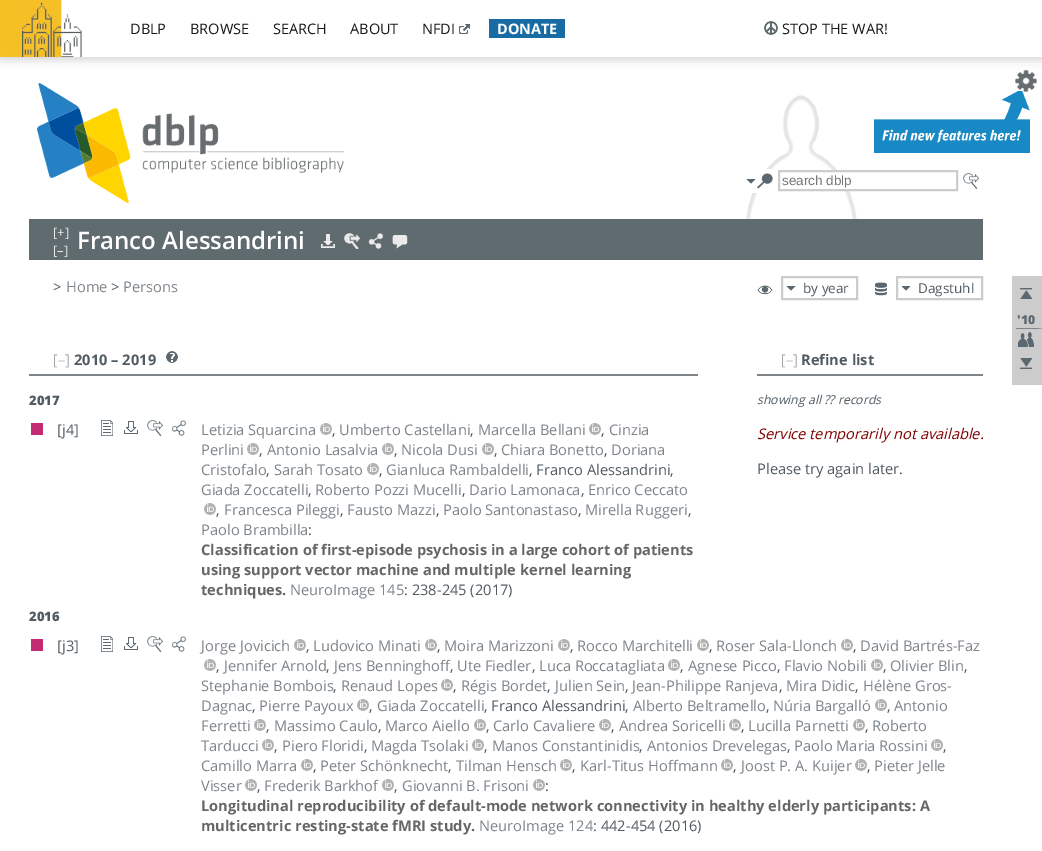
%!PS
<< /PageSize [1042 851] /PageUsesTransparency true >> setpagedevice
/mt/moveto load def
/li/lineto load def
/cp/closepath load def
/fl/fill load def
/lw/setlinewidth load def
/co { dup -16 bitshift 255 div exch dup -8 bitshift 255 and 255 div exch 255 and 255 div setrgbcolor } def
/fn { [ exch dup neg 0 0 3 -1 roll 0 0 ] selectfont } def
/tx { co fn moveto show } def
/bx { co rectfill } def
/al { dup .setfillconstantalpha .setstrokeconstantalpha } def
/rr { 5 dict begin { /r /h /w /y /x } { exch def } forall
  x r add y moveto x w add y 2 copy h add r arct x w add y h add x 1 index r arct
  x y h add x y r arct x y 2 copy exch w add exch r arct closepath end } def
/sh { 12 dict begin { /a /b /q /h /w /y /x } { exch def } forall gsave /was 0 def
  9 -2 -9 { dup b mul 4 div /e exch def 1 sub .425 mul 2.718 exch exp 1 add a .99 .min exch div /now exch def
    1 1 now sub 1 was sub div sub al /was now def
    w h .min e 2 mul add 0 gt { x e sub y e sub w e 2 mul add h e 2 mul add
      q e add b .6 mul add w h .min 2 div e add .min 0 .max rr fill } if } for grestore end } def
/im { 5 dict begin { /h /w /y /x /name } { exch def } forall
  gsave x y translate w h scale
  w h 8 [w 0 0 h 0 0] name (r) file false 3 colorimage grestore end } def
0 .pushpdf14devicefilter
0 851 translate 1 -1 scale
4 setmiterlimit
0 0 1042 851 16#FFFFFF bx
(media/7.raw) 874 91 156 62 im
(media/6.raw) 1015 70 22 22 im
16#000000 co
0 2 1042 57 0 5 .2 sh
82 0 960 57 16#FFFFFF bx
(media/1.raw) 0 0 82 57 im
(media/2.raw) 458 24 12 10 im
489 19 76 19 16#196CA3 bx
(media/3.raw) 764 21 14 14 im
(media/4.raw) 746 95 111 124 im
(media/5.raw) 37 83 308 120 im
752 169 20 24 16#FFFFFF bx
(media/8.raw) 746 179 10 5 im
(media/9.raw) 757 173 16 16 im
833 172 16 17 16#FFFFFF bx
16#CCCCCC co
2 lw
779 171 178 19 rectstroke
(media/10.raw) 963 173 16 16 im
29 219 954 41 16#606B70 bx
(media/11.raw) 321 234 14 14 im
(media/12.raw) 344 233 16 16 im
(media/13.raw) 368 233 16 16 im
(media/14.raw) 392 235 16 14 im
(media/15.raw) 757 285 16 10 im
(media/8.raw) 786 286 10 5 im
16#CCCCCC co
782 277 75 22 rectstroke
(media/16.raw) 875 282 12 14 im
(media/8.raw) 901 286 10 5 im
897 277 85 22 rectstroke
1012 276 30 109 16#CCCCCC bx
(media/17.raw) 1020 288 12 11 im
16#7D848A co
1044 329 mt 1016 329 li 1016 328 li 1036 328 li cp fl
(media/18.raw) 1018 332 16 15 im
(media/19.raw) 1020 358 12 11 im
757 374 226 2 16#7D848A bx
29 374 669 2 16#7D848A bx
(media/20.raw) 166 351 12 12 im
31 423 12 12 16#C32B72 bx
(media/21.raw) 101 420 12 16 im
(media/22.raw) 124 421 14 13 im
(media/10.raw) 147 420 16 16 im
(media/23.raw) 171 420 16 16 im
(media/24.raw) 320 423 12 12 im
(media/24.raw) 589 423 12 12 im
(media/24.raw) 247 443 12 12 im
(media/24.raw) 382 443 12 12 im
(media/24.raw) 482 443 12 12 im
(media/24.raw) 367 463 12 12 im
(media/24.raw) 204 503 12 12 im
31 639 12 12 16#C32B72 bx
(media/21.raw) 101 636 12 16 im
(media/22.raw) 124 637 14 13 im
(media/10.raw) 147 636 16 16 im
(media/23.raw) 171 636 16 16 im
(media/24.raw) 294 639 12 12 im
(media/24.raw) 425 639 12 12 im
(media/24.raw) 558 639 12 12 im
(media/24.raw) 697 639 12 12 im
(media/24.raw) 841 639 12 12 im
(media/24.raw) 204 659 12 12 im
(media/24.raw) 668 659 12 12 im
(media/24.raw) 871 659 12 12 im
(media/24.raw) 441 679 12 12 im
(media/24.raw) 357 699 12 12 im
(media/24.raw) 875 699 12 12 im
(media/24.raw) 254 719 12 12 im
(media/24.raw) 474 719 12 12 im
(media/24.raw) 599 719 12 12 im
(media/24.raw) 729 719 12 12 im
(media/24.raw) 853 719 12 12 im
(media/24.raw) 262 739 12 12 im
(media/24.raw) 472 739 12 12 im
(media/24.raw) 931 739 12 12 im
(media/24.raw) 301 759 12 12 im
(media/24.raw) 560 759 12 12 im
(media/24.raw) 721 759 12 12 im
(media/24.raw) 855 759 12 12 im
(media/24.raw) 245 779 12 12 im
(media/24.raw) 382 779 12 12 im
(media/24.raw) 533 779 12 12 im
(DBLP) 130 34 /OpenSans-Regular 14.5 16#16181B tx
(BROWSE) 190 34 /OpenSans-Regular 14.5 16#16181B tx
(SEARCH) 273 34 /OpenSans-Regular 14.5 16#16181B tx
(ABOUT) 350 34 /OpenSans-Regular 14.5 16#16181B tx
(NFDI) 422 34 /OpenSans-Regular 14.5 16#16181B tx
(DONATE) 497 34 /OpenSans-Bold 14.5 16#FFFFFF tx
(STOP THE WAR!) 782 34 /OpenSans-Regular 14.5 16#16181B tx
(search dblp) 782 185 /LiberationSans-Regular 13.5 16#757575 tx
([+]) 53 237 /OpenSans-Regular 13 16#EBEBEB tx
([–]) 53 255 /OpenSans-Regular 13 16#EBEBEB tx
(Franco Alessandrini) 77 249 /OpenSans-SemiBold 24 16#FFFFFF tx
(>) 53 292 /OpenSans-Regular 14.65 16#505B62 tx
(Home) 66 292 /OpenSans-Regular 14.65 16#7D848A tx
(>) 111 292 /OpenSans-Regular 14.65 16#505B62 tx
(Persons) 123 292 /OpenSans-Regular 14.65 16#7D848A tx
(by year) 803 293 /OpenSans-Regular 13.5 16#505B62 tx
(Dagstuhl) 918 293 /OpenSans-Regular 13.5 16#505B62 tx
('10) 1017 324 /OpenSans-ExtraBold 12.25 16#5B6870 tx
([–]) 781 365 /OpenSans-Light 14.65 16#7D848A tx
(Refine list) 801 365 /OpenSans-Bold 14.65 16#505B62 tx
(showing all ?? records) 757 404 /OpenSans-Italic 12.25 16#505B62 tx
(Service temporarily not available.) 757 439 /OpenSans-Italic 14.65 16#800000 tx
(Please try again later.) 757 474 /OpenSans-Regular 14.65 16#505B62 tx
([–]) 53 365 /OpenSans-Light 14.65 16#7D848A tx
(2010 – 2019) 74 365 /OpenSans-Bold 14.65 16#505B62 tx
(2017) 29 405 /OpenSans-ExtraBold 13 16#505B62 tx
([j4]) 57 435 /OpenSans-Regular 14.65 16#505B62 tx
(Letizia Squarcina) 201 435 /OpenSans-Regular 14.65 16#7D848A tx
(,) 332 435 /OpenSans-Regular 14.65 16#505B62 tx
(Umberto Castellani) 339 435 /OpenSans-Regular 14.65 16#7D848A tx
(,) 470 435 /OpenSans-Regular 14.65 16#505B62 tx
(Marcella Bellani) 478 435 /OpenSans-Regular 14.65 16#7D848A tx
(,) 601 435 /OpenSans-Regular 14.65 16#505B62 tx
(Cinzia) 609 435 /OpenSans-Regular 14.65 16#7D848A tx
(Perlini) 201 455 /OpenSans-Regular 14.65 16#7D848A tx
(,) 259 455 /OpenSans-Regular 14.65 16#505B62 tx
(Antonio Lasalvia) 267 455 /OpenSans-Regular 14.65 16#7D848A tx
(,) 394 455 /OpenSans-Regular 14.65 16#505B62 tx
(Nicola Dusi) 401 455 /OpenSans-Regular 14.65 16#7D848A tx
(,) 494 455 /OpenSans-Regular 14.65 16#505B62 tx
(Chiara Bonetto) 501 455 /OpenSans-Regular 14.65 16#7D848A tx
(,) 604 455 /OpenSans-Regular 14.65 16#505B62 tx
(Doriana) 611 455 /OpenSans-Regular 14.65 16#7D848A tx
(Cristofalo) 201 475 /OpenSans-Regular 14.65 16#7D848A tx
(,) 266 475 /OpenSans-Regular 14.65 16#505B62 tx
(Sarah Tosato) 274 475 /OpenSans-Regular 14.65 16#7D848A tx
(,) 379 475 /OpenSans-Regular 14.65 16#505B62 tx
(Gianluca Rambaldelli) 386 475 /OpenSans-Regular 14.65 16#7D848A tx
(, Franco Alessandrini,) 529 475 /OpenSans-Regular 14.65 16#505B62 tx
(Giada Zoccatelli) 201 495 /OpenSans-Regular 14.65 16#7D848A tx
(,) 308 495 /OpenSans-Regular 14.65 16#505B62 tx
(Roberto Pozzi Mucelli) 315 495 /OpenSans-Regular 14.65 16#7D848A tx
(,) 462 495 /OpenSans-Regular 14.65 16#505B62 tx
(Dario Lamonaca) 469 495 /OpenSans-Regular 14.65 16#7D848A tx
(,) 581 495 /OpenSans-Regular 14.65 16#505B62 tx
(Enrico Ceccato) 588 495 /OpenSans-Regular 14.65 16#7D848A tx
(,) 216 515 /OpenSans-Regular 14.65 16#505B62 tx
(Francesca Pileggi) 224 515 /OpenSans-Regular 14.65 16#7D848A tx
(,) 340 515 /OpenSans-Regular 14.65 16#505B62 tx
(Fausto Mazzi) 347 515 /OpenSans-Regular 14.65 16#7D848A tx
(,) 436 515 /OpenSans-Regular 14.65 16#505B62 tx
(Paolo Santonastaso) 443 515 /OpenSans-Regular 14.65 16#7D848A tx
(,) 578 515 /OpenSans-Regular 14.65 16#505B62 tx
(Mirella Ruggeri) 585 515 /OpenSans-Regular 14.65 16#7D848A tx
(,) 688 515 /OpenSans-Regular 14.65 16#505B62 tx
(Paolo Brambilla) 201 535 /OpenSans-Regular 14.65 16#7D848A tx
(:) 308 535 /OpenSans-Regular 14.65 16#505B62 tx
(Classification of first-episode psychosis in a large cohort of patients) 201 555 /OpenSans-Bold 14.65 16#666666 tx
(using support vector machine and multiple kernel learning) 201 575 /OpenSans-Bold 14.65 16#666666 tx
(techniques.) 201 595 /OpenSans-Bold 14.65 16#666666 tx
(NeuroImage 145) 290 595 /OpenSans-Regular 14.65 16#7D848A tx
(: 238-245 \(2017\)) 404 595 /OpenSans-Regular 14.65 16#505B62 tx
(2016) 29 621 /OpenSans-ExtraBold 13 16#505B62 tx
([j3]) 57 651 /OpenSans-Regular 14.65 16#505B62 tx
(Jorge Jovicich) 201 651 /OpenSans-Regular 14.65 16#7D848A tx
(,) 306 651 /OpenSans-Regular 14.65 16#505B62 tx
(Ludovico Minati) 313 651 /OpenSans-Regular 14.65 16#7D848A tx
(,) 437 651 /OpenSans-Regular 14.65 16#505B62 tx
(Moira Marizzoni) 444 651 /OpenSans-Regular 14.65 16#7D848A tx
(,) 570 651 /OpenSans-Regular 14.65 16#505B62 tx
(Rocco Marchitelli) 577 651 /OpenSans-Regular 14.65 16#7D848A tx
(,) 709 651 /OpenSans-Regular 14.65 16#505B62 tx
(Roser Sala-Llonch) 716 651 /OpenSans-Regular 14.65 16#7D848A tx
(,) 853 651 /OpenSans-Regular 14.65 16#505B62 tx
(David Bartrés-Faz) 860 651 /OpenSans-Regular 14.65 16#7D848A tx
(,) 216 671 /OpenSans-Regular 14.65 16#505B62 tx
(Jennifer Arnold) 224 671 /OpenSans-Regular 14.65 16#7D848A tx
(,) 326 671 /OpenSans-Regular 14.65 16#505B62 tx
(Jens Benninghoff) 334 671 /OpenSans-Regular 14.65 16#7D848A tx
(,) 450 671 /OpenSans-Regular 14.65 16#505B62 tx
(Ute Fiedler) 457 671 /OpenSans-Regular 14.65 16#7D848A tx
(,) 532 671 /OpenSans-Regular 14.65 16#505B62 tx
(Luca Roccatagliata) 539 671 /OpenSans-Regular 14.65 16#7D848A tx
(,) 680 671 /OpenSans-Regular 14.65 16#505B62 tx
(Agnese Picco) 688 671 /OpenSans-Regular 14.65 16#7D848A tx
(,) 777 671 /OpenSans-Regular 14.65 16#505B62 tx
(Flavio Nobili) 784 671 /OpenSans-Regular 14.65 16#7D848A tx
(,) 883 671 /OpenSans-Regular 14.65 16#505B62 tx
(Olivier Blin) 890 671 /OpenSans-Regular 14.65 16#7D848A tx
(,) 964 671 /OpenSans-Regular 14.65 16#505B62 tx
(Stephanie Bombois) 201 691 /OpenSans-Regular 14.65 16#7D848A tx
(,) 333 691 /OpenSans-Regular 14.65 16#505B62 tx
(Renaud Lopes) 341 691 /OpenSans-Regular 14.65 16#7D848A tx
(,) 453 691 /OpenSans-Regular 14.65 16#505B62 tx
(Régis Bordet) 461 691 /OpenSans-Regular 14.65 16#7D848A tx
(,) 547 691 /OpenSans-Regular 14.65 16#505B62 tx
(Julien Sein) 555 691 /OpenSans-Regular 14.65 16#7D848A tx
(,) 625 691 /OpenSans-Regular 14.65 16#505B62 tx
(Jean-Philippe Ranjeva) 632 691 /OpenSans-Regular 14.65 16#7D848A tx
(,) 779 691 /OpenSans-Regular 14.65 16#505B62 tx
(Mira Didic) 786 691 /OpenSans-Regular 14.65 16#7D848A tx
(,) 855 691 /OpenSans-Regular 14.65 16#505B62 tx
(Hélène Gros-) 863 691 /OpenSans-Regular 14.65 16#7D848A tx
(Dagnac) 201 711 /OpenSans-Regular 14.65 16#7D848A tx
(,) 252 711 /OpenSans-Regular 14.65 16#505B62 tx
(Pierre Payoux) 259 711 /OpenSans-Regular 14.65 16#7D848A tx
(,) 369 711 /OpenSans-Regular 14.65 16#505B62 tx
(Giada Zoccatelli) 377 711 /OpenSans-Regular 14.65 16#7D848A tx
(, Franco Alessandrini,) 484 711 /OpenSans-Regular 14.65 16#505B62 tx
(Alberto Beltramello) 633 711 /OpenSans-Regular 14.65 16#7D848A tx
(,) 766 711 /OpenSans-Regular 14.65 16#505B62 tx
(Núria Bargalló) 773 711 /OpenSans-Regular 14.65 16#7D848A tx
(,) 887 711 /OpenSans-Regular 14.65 16#505B62 tx
(Antonio) 894 711 /OpenSans-Regular 14.65 16#7D848A tx
(Ferretti) 201 731 /OpenSans-Regular 14.65 16#7D848A tx
(,) 266 731 /OpenSans-Regular 14.65 16#505B62 tx
(Massimo Caulo) 274 731 /OpenSans-Regular 14.65 16#7D848A tx
(,) 378 731 /OpenSans-Regular 14.65 16#505B62 tx
(Marco Aiello) 385 731 /OpenSans-Regular 14.65 16#7D848A tx
(,) 486 731 /OpenSans-Regular 14.65 16#505B62 tx
(Carlo Cavaliere) 493 731 /OpenSans-Regular 14.65 16#7D848A tx
(,) 611 731 /OpenSans-Regular 14.65 16#505B62 tx
(Andrea Soricelli) 619 731 /OpenSans-Regular 14.65 16#7D848A tx
(,) 741 731 /OpenSans-Regular 14.65 16#505B62 tx
(Lucilla Parnetti) 748 731 /OpenSans-Regular 14.65 16#7D848A tx
(,) 865 731 /OpenSans-Regular 14.65 16#505B62 tx
(Roberto) 872 731 /OpenSans-Regular 14.65 16#7D848A tx
(Tarducci) 201 751 /OpenSans-Regular 14.65 16#7D848A tx
(,) 274 751 /OpenSans-Regular 14.65 16#505B62 tx
(Piero Floridi) 282 751 /OpenSans-Regular 14.65 16#7D848A tx
(,) 364 751 /OpenSans-Regular 14.65 16#505B62 tx
(Magda Tsolaki) 371 751 /OpenSans-Regular 14.65 16#7D848A tx
(,) 484 751 /OpenSans-Regular 14.65 16#505B62 tx
(Manos Constantinidis) 492 751 /OpenSans-Regular 14.65 16#7D848A tx
(,) 639 751 /OpenSans-Regular 14.65 16#505B62 tx
(Antonios Drevelegas) 647 751 /OpenSans-Regular 14.65 16#7D848A tx
(,) 787 751 /OpenSans-Regular 14.65 16#505B62 tx
(Paolo Maria Rossini) 794 751 /OpenSans-Regular 14.65 16#7D848A tx
(,) 943 751 /OpenSans-Regular 14.65 16#505B62 tx
(Camillo Marra) 201 771 /OpenSans-Regular 14.65 16#7D848A tx
(,) 313 771 /OpenSans-Regular 14.65 16#505B62 tx
(Peter Schönknecht) 320 771 /OpenSans-Regular 14.65 16#7D848A tx
(,) 448 771 /OpenSans-Regular 14.65 16#505B62 tx
(Tilman Hensch) 456 771 /OpenSans-Regular 14.65 16#7D848A tx
(,) 572 771 /OpenSans-Regular 14.65 16#505B62 tx
(Karl-Titus Hoffmann) 580 771 /OpenSans-Regular 14.65 16#7D848A tx
(,) 733 771 /OpenSans-Regular 14.65 16#505B62 tx
(Joost P. A. Kuijer) 741 771 /OpenSans-Regular 14.65 16#7D848A tx
(,) 867 771 /OpenSans-Regular 14.65 16#505B62 tx
(Pieter Jelle) 874 771 /OpenSans-Regular 14.65 16#7D848A tx
(Visser) 201 791 /OpenSans-Regular 14.65 16#7D848A tx
(,) 257 791 /OpenSans-Regular 14.65 16#505B62 tx
(Frederik Barkhof) 264 791 /OpenSans-Regular 14.65 16#7D848A tx
(,) 394 791 /OpenSans-Regular 14.65 16#505B62 tx
(Giovanni B. Frisoni) 402 791 /OpenSans-Regular 14.65 16#7D848A tx
(:) 545 791 /OpenSans-Regular 14.65 16#505B62 tx
(Longitudinal reproducibility of default-mode network connectivity in healthy elderly participants: A) 201 811 /OpenSans-Bold 14.65 16#666666 tx
(multicentric resting-state fMRI study.) 201 831 /OpenSans-Bold 14.65 16#666666 tx
(NeuroImage 124) 479 831 /OpenSans-Regular 14.65 16#7D848A tx
(: 442-454 \(2016\)) 593 831 /OpenSans-Regular 14.65 16#505B62 tx
.poppdf14devicefilter showpage
